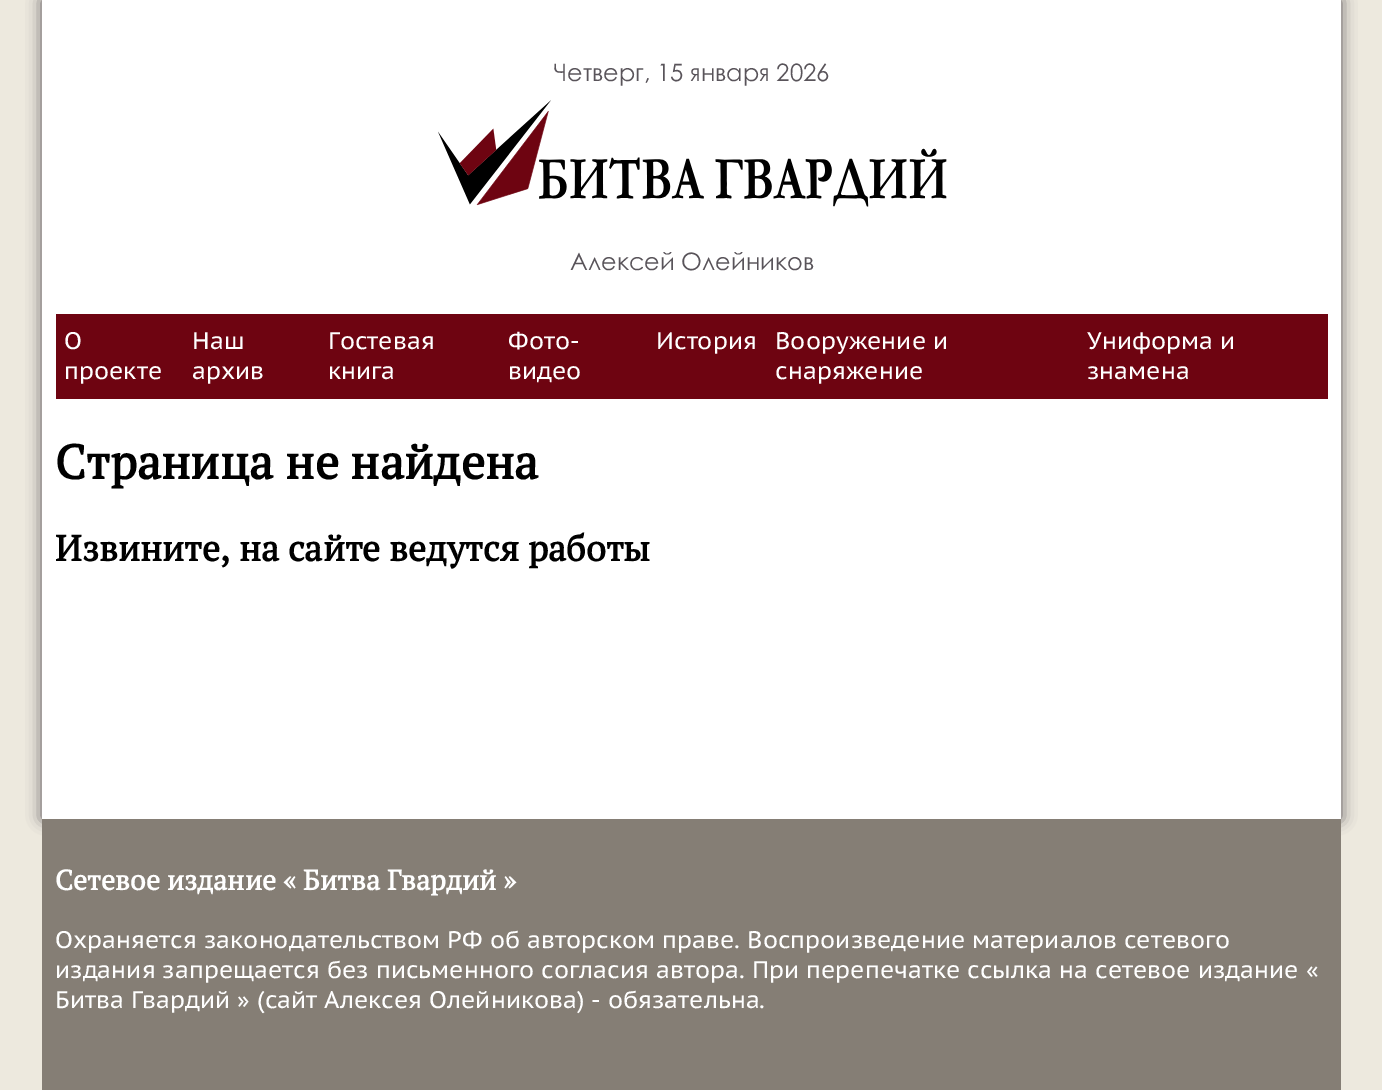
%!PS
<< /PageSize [1382 1090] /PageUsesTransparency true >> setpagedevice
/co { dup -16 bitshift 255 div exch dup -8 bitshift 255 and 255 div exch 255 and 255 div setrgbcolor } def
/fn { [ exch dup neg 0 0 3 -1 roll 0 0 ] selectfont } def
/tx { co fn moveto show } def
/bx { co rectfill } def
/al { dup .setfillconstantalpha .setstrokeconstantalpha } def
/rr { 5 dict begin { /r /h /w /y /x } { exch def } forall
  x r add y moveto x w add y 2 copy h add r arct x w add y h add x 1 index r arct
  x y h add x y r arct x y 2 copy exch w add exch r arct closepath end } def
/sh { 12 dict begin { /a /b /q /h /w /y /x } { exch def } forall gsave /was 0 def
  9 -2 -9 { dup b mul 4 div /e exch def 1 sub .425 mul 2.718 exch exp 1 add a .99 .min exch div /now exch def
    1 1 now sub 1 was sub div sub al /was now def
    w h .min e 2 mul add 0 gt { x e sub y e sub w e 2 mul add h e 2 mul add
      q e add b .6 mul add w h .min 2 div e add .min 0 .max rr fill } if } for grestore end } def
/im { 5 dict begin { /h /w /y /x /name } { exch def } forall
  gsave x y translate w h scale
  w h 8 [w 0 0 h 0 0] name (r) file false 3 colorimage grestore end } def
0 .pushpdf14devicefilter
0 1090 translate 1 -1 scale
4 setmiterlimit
0 0 1382 1090 16#EDE9DE bx
16#59545A co
42 0 1299 819 0 7.5 1 sh
42 0 1299 819 16#FFFFFF bx
(media/1.raw) 438 100 509 107 im
56 314 1272 85 16#6E0411 bx
42 819 1299 271 16#857E75 bx
(Четверг, 15 января 2026) 554 81 /CenturyGothic-Regular 24 16#59545A tx
(Алексей Олейников) 570 270 /CenturyGothic-Regular 24 16#59545A tx
(О) 64 349 /PTSansCaption-Regular 24 16#FFFFFF tx
(проекте) 64 379 /PTSansCaption-Regular 24 16#FFFFFF tx
(Наш) 192 349 /PTSansCaption-Regular 24 16#FFFFFF tx
(архив) 192 379 /PTSansCaption-Regular 24 16#FFFFFF tx
(Гостевая) 328 349 /PTSansCaption-Regular 24 16#FFFFFF tx
(книга) 328 379 /PTSansCaption-Regular 24 16#FFFFFF tx
(Фото-) 508 349 /PTSansCaption-Regular 24 16#FFFFFF tx
(видео) 508 379 /PTSansCaption-Regular 24 16#FFFFFF tx
(История) 656 349 /PTSansCaption-Regular 24 16#FFFFFF tx
(Вооружение и) 775 349 /PTSansCaption-Regular 24 16#FFFFFF tx
(снаряжение) 775 379 /PTSansCaption-Regular 24 16#FFFFFF tx
(Униформа и) 1087 349 /PTSansCaption-Regular 24 16#FFFFFF tx
(знамена) 1087 379 /PTSansCaption-Regular 24 16#FFFFFF tx
(Страница не найдена) 55 479 /PTSerif-Bold 48 16#000000 tx
(Извините, на сайте ведутся работы) 55 561 /PTSerif-Bold 36 16#000000 tx
(Сетевое издание « Битва Гвардий ») 55 890 /PTSerif-Bold 28.1 16#FFFFFF tx
(Охраняется законодательством РФ об авторском праве. Воспроизведение материалов сетевого) 55 948 /PTSansCaption-Regular 24 16#FFFFFF tx
(издания запрещается без письменного согласия автора. При перепечатке ссылка на сетевое издание «) 55 978 /PTSansCaption-Regular 24 16#FFFFFF tx
(Битва Гвардий » \(сайт Алексея Олейникова\) - обязательна.) 55 1008 /PTSansCaption-Regular 24 16#FFFFFF tx
.poppdf14devicefilter showpage
